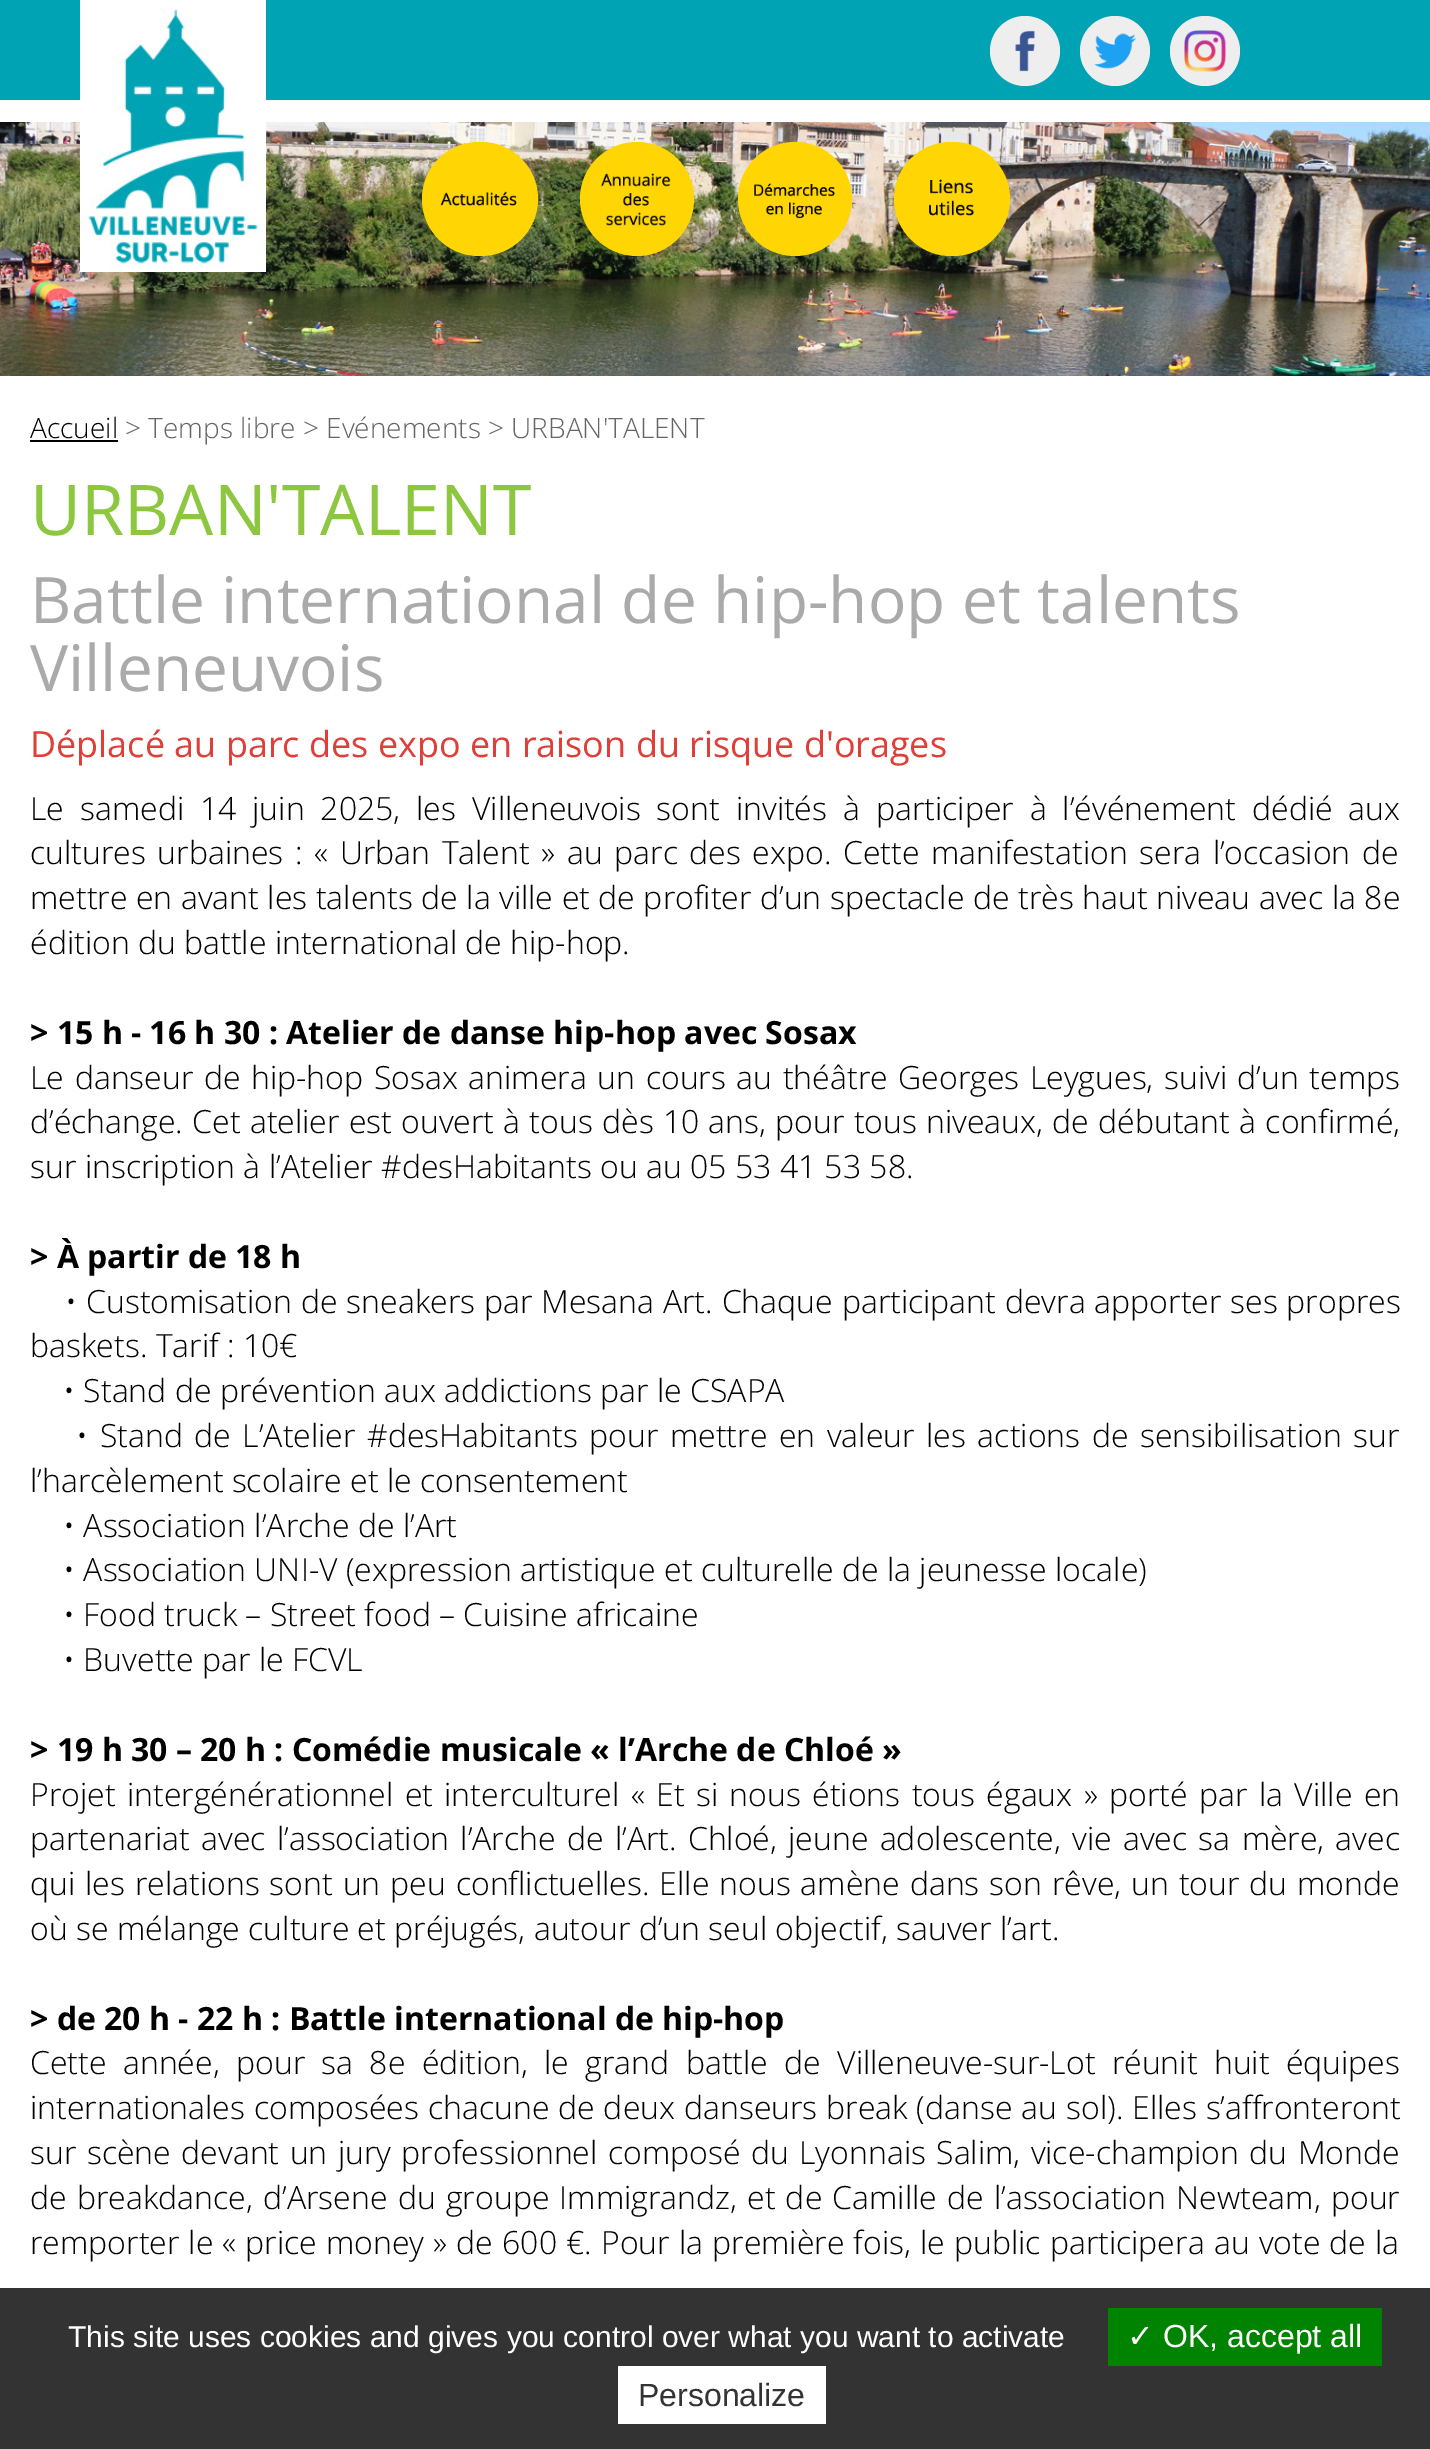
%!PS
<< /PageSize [1430 2449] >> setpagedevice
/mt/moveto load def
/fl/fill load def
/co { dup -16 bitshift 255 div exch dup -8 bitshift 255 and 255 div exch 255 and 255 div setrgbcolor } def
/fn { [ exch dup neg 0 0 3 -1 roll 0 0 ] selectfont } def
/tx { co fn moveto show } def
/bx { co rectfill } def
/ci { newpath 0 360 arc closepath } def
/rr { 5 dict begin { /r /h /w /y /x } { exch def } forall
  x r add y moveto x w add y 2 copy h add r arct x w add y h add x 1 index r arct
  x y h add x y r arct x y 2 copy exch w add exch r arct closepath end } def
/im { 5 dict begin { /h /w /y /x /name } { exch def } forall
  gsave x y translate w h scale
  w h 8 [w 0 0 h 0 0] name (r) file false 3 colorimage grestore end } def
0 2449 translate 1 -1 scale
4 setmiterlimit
0 0 1430 2449 16#FFFFFF bx
0 0 1430 100 16#00A3B4 bx
16#EEEEEE co
1025 51 35 ci fl
(media/1.raw) 1015 30 20 42 im
1115 51 35 ci fl
(media/2.raw) 1094 33 42 36 im
1205 51 35 ci fl
(media/3.raw) 1184 30 42 42 im
(media/5.raw) 0 122 1430 254 im
(media/4.raw) 80 0 186 272 im
16#FFD503 co
422 142 116 114 57 rr fl
(media/6.raw) 440 191 77 15 im
637 199 57 ci fl
(media/7.raw) 601 173 70 53 im
795 199 57 ci fl
(media/8.raw) 754 183 81 36 im
894 142 116 114 57 rr fl
(media/9.raw) 929 179 45 37 im
30 440 88 2 16#000000 bx
0 2288 1430 161 16#333333 bx
1108 2308 274 58 16#008300 bx
618 2366 208 58 16#FFFFFF bx
(Accueil) 30 438 /OpenSans-Light 28 16#000000 tx
(> Temps libre > Evénements > URBAN'TALENT) 125 438 /OpenSans-Light 28 16#666666 tx
(URBAN'TALENT) 30 535 /OpenSans-Regular 70 16#8DC63F tx
(Battle international de hip-hop et talents) 30 623 /OpenSans-Regular 64 16#AAAAAA tx
(Villeneuvois) 30 691 /OpenSans-Regular 64 16#AAAAAA tx
(Déplacé au parc des expo en raison du risque d'orages) 30 757 /OpenSans-Regular 36 16#DF3F39 tx
/OpenSans-Light 32 fn
16#000000 co
30 820 mt 7.6 0 32 (Le samedi 14 juin 2025, les Villeneuvois sont invités à participer à l’événement dédié aux) widthshow
30 864 mt 3.25 0 32 (cultures urbaines : « Urban Talent » au parc des expo. Cette manifestation sera l’occasion de) widthshow
30 909 mt .2 0 32 (mettre en avant les talents de la ville et de profiter d’un spectacle de très haut niveau avec la 8e) widthshow
(édition du battle international de hip-hop.) 30 954 /OpenSans-Light 32 16#000000 tx
(> 15 h - 16 h 30 : Atelier de danse hip-hop avec Sosax) 30 1044 /OpenSans-Bold 32 16#000000 tx
/OpenSans-Light 32 fn
30 1089 mt 2.25 0 32 (Le danseur de hip-hop Sosax animera un cours au théâtre Georges Leygues, suivi d’un temps) widthshow
30 1133 mt .9 0 32 (d’échange. Cet atelier est ouvert à tous dès 10 ans, pour tous niveaux, de débutant à confirmé,) widthshow
(sur inscription à l’Atelier #desHabitants ou au 05 53 41 53 58.) 30 1178 /OpenSans-Light 32 16#000000 tx
(> À partir de 18 h) 30 1268 /OpenSans-Bold 32 16#000000 tx
/OpenSans-Light 32 fn
65 1313 mt .5 0 32 (• Customisation de sneakers par Mesana Art. Chaque participant devra apporter ses propres) widthshow
(baskets. Tarif : 10€) 30 1357 /OpenSans-Light 32 16#000000 tx
(• Stand de prévention aux addictions par le CSAPA) 63 1402 /OpenSans-Light 32 16#000000 tx
76 1447 mt 3.25 0 32 (• Stand de L’Atelier #desHabitants pour mettre en valeur les actions de sensibilisation sur) widthshow
(l’harcèlement scolaire et le consentement) 30 1492 /OpenSans-Light 32 16#000000 tx
(• Association l’Arche de l’Art) 63 1537 /OpenSans-Light 32 16#000000 tx
(• Association UNI-V \(expression artistique et culturelle de la jeunesse locale\)) 63 1581 /OpenSans-Light 32 16#000000 tx
(• Food truck – Street food – Cuisine africaine) 63 1626 /OpenSans-Light 32 16#000000 tx
(• Buvette par le FCVL) 63 1671 /OpenSans-Light 32 16#000000 tx
(> 19 h 30 – 20 h : Comédie musicale « l’Arche de Chloé ») 30 1761 /OpenSans-Bold 32 16#000000 tx
/OpenSans-Light 32 fn
30 1806 mt 3.1 0 32 (Projet intergénérationnel et interculturel « Et si nous étions tous égaux » porté par la Ville en) widthshow
30 1850 mt 2.9 0 32 (partenariat avec l’association l’Arche de l’Art. Chloé, jeune adolescente, vie avec sa mère, avec) widthshow
30 1895 mt 1.6 0 32 (qui les relations sont un peu conflictuelles. Elle nous amène dans son rêve, un tour du monde) widthshow
(où se mélange culture et préjugés, autour d’un seul objectif, sauver l’art.) 30 1940 /OpenSans-Light 32 16#000000 tx
(> de 20 h - 22 h : Battle international de hip-hop) 30 2030 /OpenSans-Bold 32 16#000000 tx
/OpenSans-Light 32 fn
30 2074 mt 8 0 32 (Cette année, pour sa 8e édition, le grand battle de Villeneuve-sur-Lot réunit huit équipes) widthshow
30 2119 mt .5 0 32 (internationales composées chacune de deux danseurs break \(danse au sol\). Elles s’affronteront) widthshow
30 2164 mt 2.1 0 32 (sur scène devant un jury professionnel composé du Lyonnais Salim, vice-champion du Monde) widthshow
30 2209 mt 1.9 0 32 (de breakdance, d’Arsene du groupe Immigrandz, et de Camille de l’association Newteam, pour) widthshow
30 2254 mt .8 0 32 (remporter le « price money » de 600 €. Pour la première fois, le public participera au vote de la) widthshow
(This site uses cookies and gives you control over what you want to activate) 68 2347 /LiberationSans-Regular 30 16#FFFFFF tx
(✓) 1127 2347 /DejaVuSans-Regular 32 16#FFFFFF tx
(OK, accept all) 1163 2347 /LiberationSans-Regular 32 16#FFFFFF tx
(Personalize) 638 2406 /LiberationSans-Regular 32 16#333333 tx
showpage
